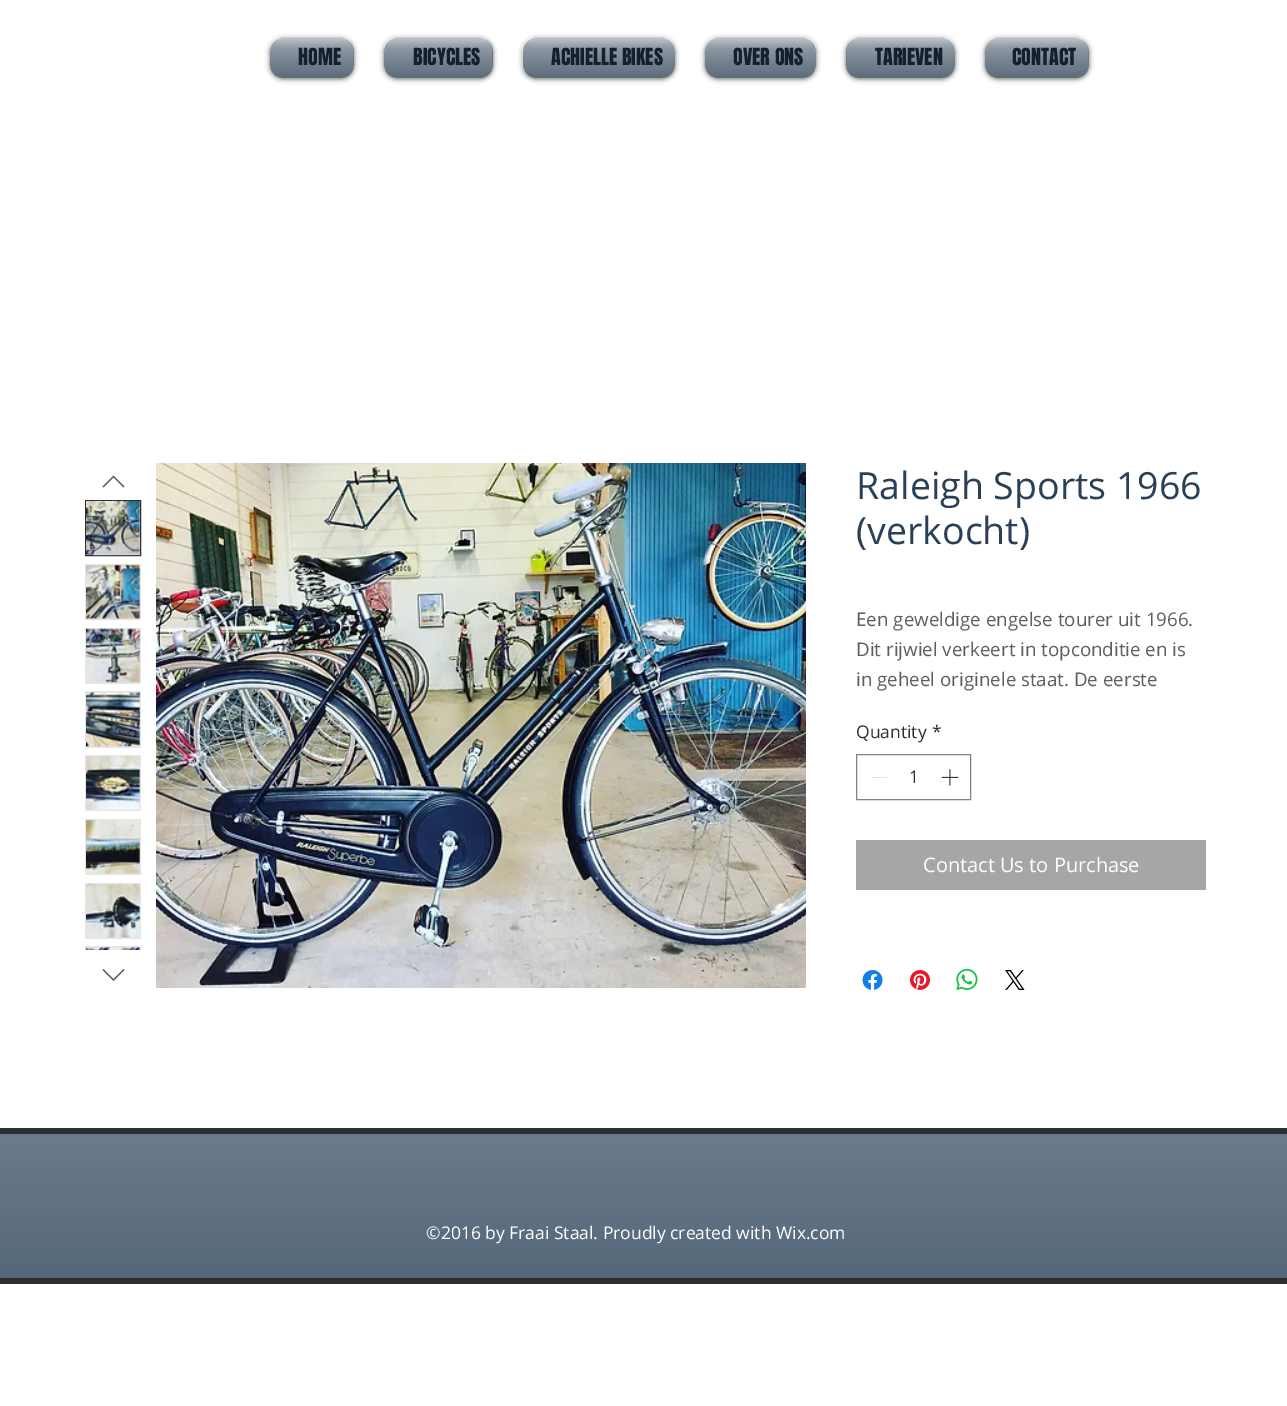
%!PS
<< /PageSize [1287 1406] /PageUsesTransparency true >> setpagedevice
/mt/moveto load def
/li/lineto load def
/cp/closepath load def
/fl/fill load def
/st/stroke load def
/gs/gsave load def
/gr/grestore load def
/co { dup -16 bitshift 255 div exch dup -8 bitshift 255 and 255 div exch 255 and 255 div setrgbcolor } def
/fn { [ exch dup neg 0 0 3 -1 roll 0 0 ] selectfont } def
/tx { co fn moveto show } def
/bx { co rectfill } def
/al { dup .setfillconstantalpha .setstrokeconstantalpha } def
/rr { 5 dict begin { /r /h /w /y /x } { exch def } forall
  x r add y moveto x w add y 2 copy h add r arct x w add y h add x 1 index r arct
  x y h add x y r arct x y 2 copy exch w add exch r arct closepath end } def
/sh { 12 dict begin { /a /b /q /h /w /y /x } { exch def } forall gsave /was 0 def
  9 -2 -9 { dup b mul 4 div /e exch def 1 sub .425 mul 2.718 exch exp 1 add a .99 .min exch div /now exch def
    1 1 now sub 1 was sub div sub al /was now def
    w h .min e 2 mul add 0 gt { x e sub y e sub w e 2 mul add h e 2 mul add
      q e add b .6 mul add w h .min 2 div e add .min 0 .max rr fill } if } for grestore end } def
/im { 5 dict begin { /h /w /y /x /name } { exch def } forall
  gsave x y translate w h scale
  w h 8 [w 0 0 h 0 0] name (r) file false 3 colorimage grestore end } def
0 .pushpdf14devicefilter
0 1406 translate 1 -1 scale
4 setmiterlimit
0 0 1287 1406 16#FFFFFF bx
16#000000 co
270 39 84 40 13 2.5 .6 sh
16#5F7081 co
270 38 84 40 13 rr fl
(media/1.raw) 270 38 84 39 im
(media/2.raw) 270 38 84 40 im
16#000000 co
384 39 109 40 13 2.5 .6 sh
16#5F7081 co
384 38 109 40 13 rr fl
(media/3.raw) 384 38 109 39 im
(media/4.raw) 384 38 108 40 im
16#000000 co
523 39 152 40 13 2.5 .6 sh
16#5F7081 co
523 38 152 40 13 rr fl
(media/5.raw) 523 38 152 39 im
(media/6.raw) 522 38 153 40 im
16#000000 co
705 39 111 40 13 2.5 .6 sh
16#5F7081 co
705 38 111 40 13 rr fl
(media/7.raw) 705 38 111 39 im
(media/8.raw) 705 38 111 40 im
16#000000 co
846 39 109 40 13 2.5 .6 sh
16#5F7081 co
846 38 109 40 13 rr fl
(media/9.raw) 846 38 109 39 im
(media/10.raw) 846 38 109 40 im
16#000000 co
985 39 104 40 13 2.5 .6 sh
16#5F7081 co
985 38 104 40 13 rr fl
(media/11.raw) 985 38 104 39 im
(media/12.raw) 985 38 104 40 im
16#605E5E co
113.5 475.5 mt 124.5 486.5 li 123.5 487.5 li 113.5 477.5 li 103.5 487.5 li 102.5 486.5 li cp eofill
16#E5E5E5 co
85.5 500.5 mt 140.5 500.5 li 140.5 555.5 li 85.5 555.5 li cp gs fl gr
16#2F2E2E co
st
(media/13.raw) 86 501 54 55 im
85 564 56 56 16#E5E5E5 bx
(media/14.raw) 86 564 54 56 im
85 628 56 56 16#E5E5E5 bx
(media/15.raw) 86 628 54 55 im
85 691 56 57 16#E5E5E5 bx
(media/16.raw) 86 692 54 55 im
85 755 56 56 16#E5E5E5 bx
(media/17.raw) 86 756 54 54 im
85 819 56 56 16#E5E5E5 bx
(media/18.raw) 86 819 54 56 im
85 883 56 56 16#E5E5E5 bx
(media/19.raw) 86 883 54 55 im
85 946 56 4 16#E5E5E5 bx
(media/20.raw) 86 947 54 3 im
16#605E5E co
123.5 969 mt 124.5 970 li 113.5 981 li 102.5 970 li 103.5 969 li 113.5 979 li cp eofill
(media/21.raw) 156 463 650 525 im
16#828282 co
856.5 754.5 114 45 rectstroke
871 777 16 1 16#E3E3E3 bx
(media/22.raw) 941 769 18 17 im
856 840 350 50 16#A6A6A6 bx
(media/23.raw) 862 970 21 20 im
(media/24.raw) 910 970 20 20 im
(media/25.raw) 956 968 22 23 im
(media/26.raw) 1005 970 20 20 im
0 1134 1287 144 16#384D63 bx
(media/27.raw) 0 1134 1287 144 im
0 1128 1287 6 16#2F2E2E bx
0 1278 1287 6 16#2F2E2E bx
(HOME) 298 65 /Anton-Regular 20 16#14202C tx
(BICYCLES) 413 65 /Anton-Regular 20 16#14202C tx
(ACHIELLE BIKES) 551 65 /Anton-Regular 20 16#14202C tx
(OVER ONS) 733 65 /Anton-Regular 20 16#14202C tx
(TARIEVEN) 875 65 /Anton-Regular 20 16#14202C tx
(CONTACT) 1012 65 /Anton-Regular 20 16#14202C tx
(Raleigh Sports 1966) 856 499 /OpenSans-Regular 37.5 16#294057 tx
(\(verkocht\)) 856 544 /OpenSans-Regular 37.5 16#294057 tx
(Een geweldige engelse tourer uit 1966.) 856 626 /OpenSans-Regular 18.75 16#605E5E tx
(Dit rijwiel verkeert in topconditie en is) 856 656 /OpenSans-Regular 18.75 16#605E5E tx
(in geheel originele staat. De eerste) 856 686 /OpenSans-Regular 18.75 16#605E5E tx
(Quantity) 856 738 /OpenSans-Regular 17.5 16#2F2E2E tx
(*) 932 738 /OpenSans-Regular 17.5 16#2F2E2E tx
(1) 909 783 /OpenSans-Regular 17.5 16#2F2E2E tx
(Contact Us to Purchase) 923 872 /OpenSans-Regular 20 16#FFFFFF tx
(©2016 by Fraai Staal. Proudly created with Wix.com) 426 1239 /OpenSans-Regular 17.5 16#FFFFFF tx
.poppdf14devicefilter showpage
